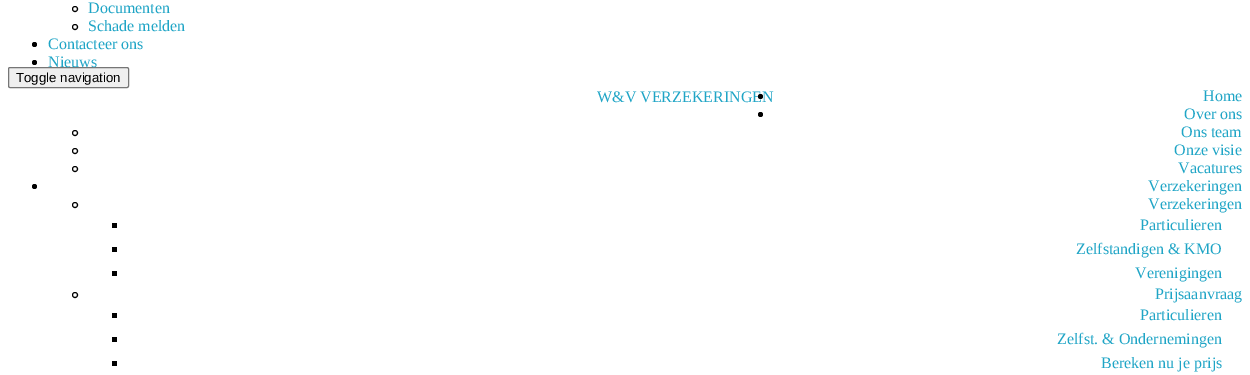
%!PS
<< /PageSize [1250 375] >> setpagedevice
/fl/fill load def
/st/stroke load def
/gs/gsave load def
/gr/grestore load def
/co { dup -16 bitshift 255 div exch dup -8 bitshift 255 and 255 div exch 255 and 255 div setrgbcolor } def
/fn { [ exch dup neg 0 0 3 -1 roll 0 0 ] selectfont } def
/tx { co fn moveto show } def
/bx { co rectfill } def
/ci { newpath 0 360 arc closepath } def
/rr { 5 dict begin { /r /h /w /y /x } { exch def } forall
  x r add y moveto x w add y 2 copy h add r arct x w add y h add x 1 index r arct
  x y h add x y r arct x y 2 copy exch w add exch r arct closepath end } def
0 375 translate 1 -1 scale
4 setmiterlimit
0 0 1250 375 16#FFFFFF bx
16#000000 co
75 9 2.5 ci st
75 27 2.5 ci st
34.5 44.5 2.5 ci fl
34.5 62.5 2.5 ci fl
16#EFEFEF co
8.5 67.5 120 20 1.5 rr gs fl gr
16#767676 co
st
16#000000 co
760.5 114.5 2.5 ci fl
75 133 2.5 ci st
75 151 2.5 ci st
75 169 2.5 ci st
34.5 186.5 2.5 ci fl
75 205 2.5 ci st
112 223 5 5 16#000000 bx
112 247 5 5 16#000000 bx
112 271 5 5 16#000000 bx
75 295 2.5 ci st
112 313 5 5 16#000000 bx
112 337 5 5 16#000000 bx
112 361 5 5 16#000000 bx
(Documenten) 88 13 /LiberationSerif-Regular 16 16#1FA5C6 tx
(Schade melden) 88 31 /LiberationSerif-Regular 16 16#1FA5C6 tx
(Contacteer ons) 48 49 /LiberationSerif-Regular 16 16#1FA5C6 tx
(Nieuws) 48 67 /LiberationSerif-Regular 16 16#1FA5C6 tx
(Toggle navigation) 16 82 /LiberationSans-Regular 13.25 16#000000 tx
(W&V VERZEKERINGEN) 597 102 /LiberationSerif-Regular 16 16#1FA5C6 tx
16#000000 co
760.5 96.5 2.5 ci fl
(Home) 1203 101 /LiberationSerif-Regular 16 16#1FA5C6 tx
(Over ons) 1184 119 /LiberationSerif-Regular 16 16#1FA5C6 tx
(Ons team) 1181 137 /LiberationSerif-Regular 16 16#1FA5C6 tx
(Onze visie) 1174 155 /LiberationSerif-Regular 16 16#1FA5C6 tx
(Vacatures) 1178 173 /LiberationSerif-Regular 16 16#1FA5C6 tx
(Verzekeringen) 1148 191 /LiberationSerif-Regular 16 16#1FA5C6 tx
(Verzekeringen) 1148 209 /LiberationSerif-Regular 16 16#1FA5C6 tx
(Particulieren) 1140 230 /LiberationSerif-Regular 16 16#1FA5C6 tx
(Zelfstandigen & KMO) 1076 254 /LiberationSerif-Regular 16 16#1FA5C6 tx
(Verenigingen) 1135 278 /LiberationSerif-Regular 16 16#1FA5C6 tx
(Prijsaanvraag) 1155 299 /LiberationSerif-Regular 16 16#1FA5C6 tx
(Particulieren) 1140 320 /LiberationSerif-Regular 16 16#1FA5C6 tx
(Zelfst. & Ondernemingen) 1057 344 /LiberationSerif-Regular 16 16#1FA5C6 tx
(Bereken nu je prijs) 1101 368 /LiberationSerif-Regular 16 16#1FA5C6 tx
showpage
